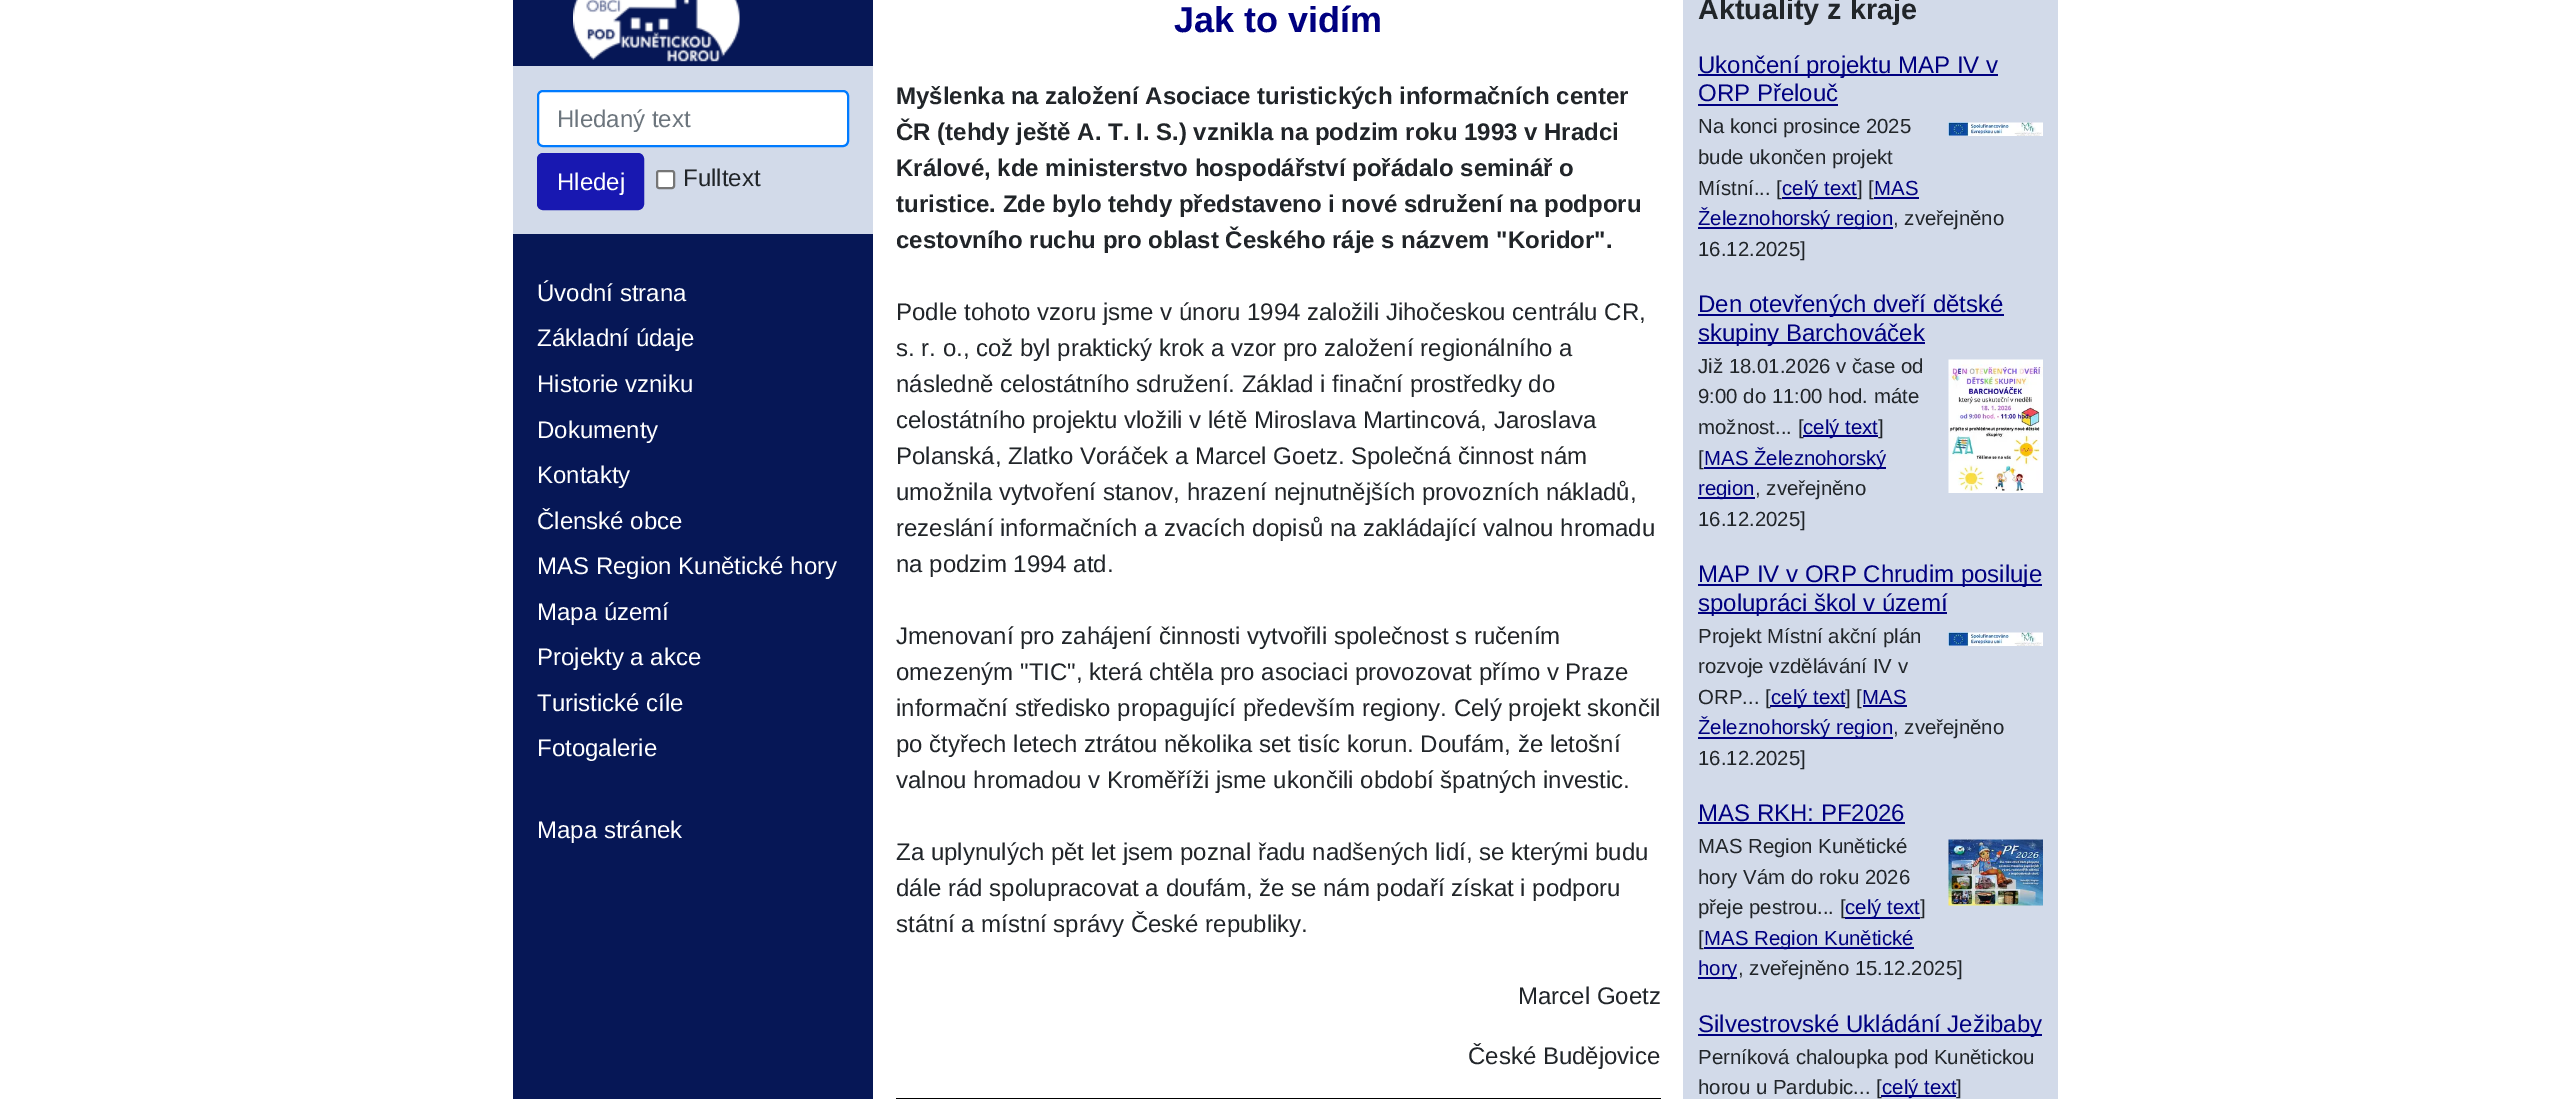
%!PS
<< /PageSize [2570 1099] >> setpagedevice
/fl/fill load def
/st/stroke load def
/gs/gsave load def
/gr/grestore load def
/lw/setlinewidth load def
/co { dup -16 bitshift 255 div exch dup -8 bitshift 255 and 255 div exch 255 and 255 div setrgbcolor } def
/fn { [ exch dup neg 0 0 3 -1 roll 0 0 ] selectfont } def
/tx { co fn moveto show } def
/bx { co rectfill } def
/rr { 5 dict begin { /r /h /w /y /x } { exch def } forall
  x r add y moveto x w add y 2 copy h add r arct x w add y h add x 1 index r arct
  x y h add x y r arct x y 2 copy exch w add exch r arct closepath end } def
/im { 5 dict begin { /h /w /y /x /name } { exch def } forall
  gsave x y translate w h scale
  w h 8 [w 0 0 h 0 0] name (r) file false 3 colorimage grestore end } def
0 1099 translate 1 -1 scale
4 setmiterlimit
0 0 2570 1099 16#FFFFFF bx
513 0 360 1099 16#061756 bx
(media/1.raw) 573 0 167 62 im
513 66 360 168 16#D2DAE9 bx
16#FFFFFF co
538 91 310 55 5 rr gs fl gr
16#007BFF co
2 lw
st
16#1818B1 co
538 154 105 55 5 rr gs fl gr
st
16#FFFFFF co
657 171 17 17 2 rr gs fl gr
16#767676 co
st
896 1098 765 1 16#000000 bx
1683 0 375 1099 16#D2DAE9 bx
1698 74 300 2 16#000080 bx
1698 104 140 2 16#000080 bx
(media/2.raw) 1948 122 95 14 im
1782 197 75 2 16#000080 bx
1874 197 45 2 16#000080 bx
1698 227 195 2 16#000080 bx
1698 314 306 2 16#000080 bx
1698 342 227 2 16#000080 bx
(media/3.raw) 1948 359 95 134 im
1704 467 182 2 16#000080 bx
1698 497 57 2 16#000080 bx
1698 584 344 2 16#000080 bx
1698 612 249 2 16#000080 bx
(media/2.raw) 1948 632 95 14 im
1863 705 44 2 16#000080 bx
1698 737 195 2 16#000080 bx
1698 822 207 2 16#000080 bx
(media/4.raw) 1948 839 95 67 im
1704 947 210 2 16#000080 bx
1698 977 39 2 16#000080 bx
1698 1034 344 2 16#000080 bx
(Hledaný text) 557 127 /LiberationSans-Regular 24 16#6C757D tx
(Hledej) 557 190 /LiberationSans-Regular 24 16#FFFFFF tx
(Fulltext) 683 186 /LiberationSans-Regular 24 16#212529 tx
(Úvodní strana) 537 301 /LiberationSans-Regular 24 16#FFFFFF tx
(Základní údaje) 537 346 /LiberationSans-Regular 24 16#FFFFFF tx
(Historie vzniku) 537 392 /LiberationSans-Regular 24 16#FFFFFF tx
(Dokumenty) 537 438 /LiberationSans-Regular 24 16#FFFFFF tx
(Kontakty) 537 483 /LiberationSans-Regular 24 16#FFFFFF tx
(Členské obce) 537 529 /LiberationSans-Regular 24 16#FFFFFF tx
(MAS Region Kunětické hory) 537 574 /LiberationSans-Regular 24 16#FFFFFF tx
(Mapa území) 537 620 /LiberationSans-Regular 24 16#FFFFFF tx
(Projekty a akce) 537 665 /LiberationSans-Regular 24 16#FFFFFF tx
(Turistické cíle) 537 711 /LiberationSans-Regular 24 16#FFFFFF tx
(Fotogalerie) 537 756 /LiberationSans-Regular 24 16#FFFFFF tx
(Mapa stránek) 537 838 /LiberationSans-Regular 24 16#FFFFFF tx
(Jak to vidím) 1174 32 /LiberationSans-Bold 36 16#000080 tx
(Myšlenka na založení Asociace turistických informačních center) 896 104 /LiberationSans-Bold 24 16#212529 tx
(ČR \(tehdy ještě A. T. I. S.\) vznikla na podzim roku 1993 v Hradci) 896 140 /LiberationSans-Bold 24 16#212529 tx
(Králové, kde ministerstvo hospodářství pořádalo seminář o) 896 176 /LiberationSans-Bold 24 16#212529 tx
(turistice. Zde bylo tehdy představeno i nové sdružení na podporu) 896 212 /LiberationSans-Bold 24 16#212529 tx
(cestovního ruchu pro oblast Českého ráje s názvem "Koridor".) 896 248 /LiberationSans-Bold 24 16#212529 tx
(Podle tohoto vzoru jsme v únoru 1994 založili Jihočeskou centrálu CR,) 896 320 /LiberationSans-Regular 24 16#212529 tx
(s. r. o., což byl praktický krok a vzor pro založení regionálního a) 896 356 /LiberationSans-Regular 24 16#212529 tx
(následně celostátního sdružení. Základ i finační prostředky do) 896 392 /LiberationSans-Regular 24 16#212529 tx
(celostátního projektu vložili v létě Miroslava Martincová, Jaroslava) 896 428 /LiberationSans-Regular 24 16#212529 tx
(Polanská, Zlatko Voráček a Marcel Goetz. Společná činnost nám) 896 464 /LiberationSans-Regular 24 16#212529 tx
(umožnila vytvoření stanov, hrazení nejnutnějších provozních nákladů,) 896 500 /LiberationSans-Regular 24 16#212529 tx
(rezeslání informačních a zvacích dopisů na zakládající valnou hromadu) 896 536 /LiberationSans-Regular 24 16#212529 tx
(na podzim 1994 atd.) 896 572 /LiberationSans-Regular 24 16#212529 tx
(Jmenovaní pro zahájení činnosti vytvořili společnost s ručením) 896 644 /LiberationSans-Regular 24 16#212529 tx
(omezeným "TIC", která chtěla pro asociaci provozovat přímo v Praze) 896 680 /LiberationSans-Regular 24 16#212529 tx
(informační středisko propagující především regiony. Celý projekt skončil) 896 716 /LiberationSans-Regular 24 16#212529 tx
(po čtyřech letech ztrátou několika set tisíc korun. Doufám, že letošní) 896 752 /LiberationSans-Regular 24 16#212529 tx
(valnou hromadou v Kroměříži jsme ukončili období špatných investic.) 896 788 /LiberationSans-Regular 24 16#212529 tx
(Za uplynulých pět let jsem poznal řadu nadšených lidí, se kterými budu) 896 860 /LiberationSans-Regular 24 16#212529 tx
(dále rád spolupracovat a doufám, že se nám podaří získat i podporu) 896 896 /LiberationSans-Regular 24 16#212529 tx
(státní a místní správy České republiky.) 896 932 /LiberationSans-Regular 24 16#212529 tx
(Marcel Goetz) 1518 1004 /LiberationSans-Regular 24 16#212529 tx
(České Budějovice) 1468 1064 /LiberationSans-Regular 24 16#212529 tx
(Aktuality z kraje) 1698 19 /LiberationSans-Bold 28.75 16#212529 tx
(Ukončení projektu MAP IV v) 1698 73 /LiberationSans-Regular 24 16#000080 tx
(ORP Přelouč) 1698 101 /LiberationSans-Regular 24 16#000080 tx
(Na konci prosince 2025) 1698 133 /LiberationSans-Regular 20.4 16#212529 tx
(bude ukončen projekt) 1698 164 /LiberationSans-Regular 20.4 16#212529 tx
(Místní... [) 1698 195 /LiberationSans-Regular 20.4 16#212529 tx
(celý text) 1782 195 /LiberationSans-Regular 20.4 16#000080 tx
(] [) 1857 195 /LiberationSans-Regular 20.4 16#212529 tx
(MAS) 1874 195 /LiberationSans-Regular 20.4 16#000080 tx
(Železnohorský region) 1698 225 /LiberationSans-Regular 20.4 16#000080 tx
(, zveřejněno) 1893 225 /LiberationSans-Regular 20.4 16#212529 tx
(16.12.2025]) 1698 256 /LiberationSans-Regular 20.4 16#212529 tx
(Den otevřených dveří dětské) 1698 312 /LiberationSans-Regular 24 16#000080 tx
(skupiny Barchováček) 1698 341 /LiberationSans-Regular 24 16#000080 tx
(Již 18.01.2026 v čase od) 1698 373 /LiberationSans-Regular 20.4 16#212529 tx
(9:00 do 11:00 hod. máte) 1698 403 /LiberationSans-Regular 20.4 16#212529 tx
(možnost... [) 1698 434 /LiberationSans-Regular 20.4 16#212529 tx
1803 435 75 2 16#000080 bx
(celý text) 1803 434 /LiberationSans-Regular 20.4 16#000080 tx
(]) 1878 434 /LiberationSans-Regular 20.4 16#212529 tx
([) 1698 465 /LiberationSans-Regular 20.4 16#212529 tx
(MAS Železnohorský) 1704 465 /LiberationSans-Regular 20.4 16#000080 tx
(region) 1698 495 /LiberationSans-Regular 20.4 16#000080 tx
(, zveřejněno) 1755 495 /LiberationSans-Regular 20.4 16#212529 tx
(16.12.2025]) 1698 526 /LiberationSans-Regular 20.4 16#212529 tx
(MAP IV v ORP Chrudim posiluje) 1698 582 /LiberationSans-Regular 24 16#000080 tx
(spolupráci škol v území) 1698 611 /LiberationSans-Regular 24 16#000080 tx
(Projekt Místní akční plán) 1698 643 /LiberationSans-Regular 20.4 16#212529 tx
(rozvoje vzdělávání IV v) 1698 673 /LiberationSans-Regular 20.4 16#212529 tx
(ORP... [) 1698 704 /LiberationSans-Regular 20.4 16#212529 tx
1770 705 75 2 16#000080 bx
(celý text) 1771 704 /LiberationSans-Regular 20.4 16#000080 tx
(] [) 1845 704 /LiberationSans-Regular 20.4 16#212529 tx
(MAS) 1862 704 /LiberationSans-Regular 20.4 16#000080 tx
(Železnohorský region) 1698 734 /LiberationSans-Regular 20.4 16#000080 tx
(, zveřejněno) 1893 734 /LiberationSans-Regular 20.4 16#212529 tx
(16.12.2025]) 1698 765 /LiberationSans-Regular 20.4 16#212529 tx
(MAS RKH: PF2026) 1698 821 /LiberationSans-Regular 24 16#000080 tx
(MAS Region Kunětické) 1698 853 /LiberationSans-Regular 20.4 16#212529 tx
(hory Vám do roku 2026) 1698 884 /LiberationSans-Regular 20.4 16#212529 tx
(přeje pestrou... [) 1698 914 /LiberationSans-Regular 20.4 16#212529 tx
1845 917 75 2 16#000080 bx
(celý text) 1845 914 /LiberationSans-Regular 20.4 16#000080 tx
(]) 1920 914 /LiberationSans-Regular 20.4 16#212529 tx
([) 1698 945 /LiberationSans-Regular 20.4 16#212529 tx
(MAS Region Kunětické) 1704 945 /LiberationSans-Regular 20.4 16#000080 tx
(hory) 1698 975 /LiberationSans-Regular 20.4 16#000080 tx
(, zveřejněno 15.12.2025]) 1738 975 /LiberationSans-Regular 20.4 16#212529 tx
(Silvestrovské Ukládání Ježibaby) 1698 1032 /LiberationSans-Regular 24 16#000080 tx
(Perníková chaloupka pod Kunětickou) 1698 1064 /LiberationSans-Regular 20.4 16#212529 tx
(horou u Pardubic... [) 1698 1094 /LiberationSans-Regular 20.4 16#212529 tx
1881 1095 75 2 16#000080 bx
(celý text) 1882 1094 /LiberationSans-Regular 20.4 16#000080 tx
(]) 1956 1094 /LiberationSans-Regular 20.4 16#212529 tx
showpage
